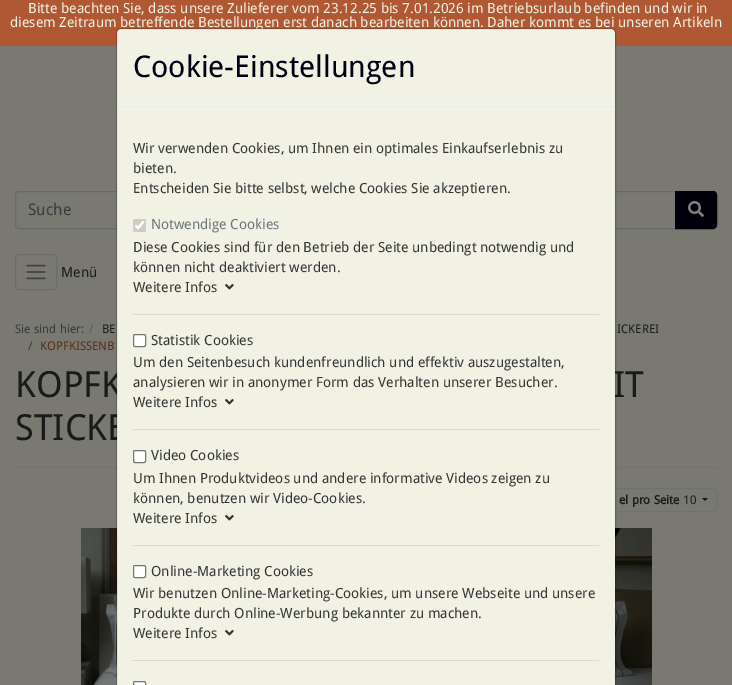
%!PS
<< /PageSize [732 685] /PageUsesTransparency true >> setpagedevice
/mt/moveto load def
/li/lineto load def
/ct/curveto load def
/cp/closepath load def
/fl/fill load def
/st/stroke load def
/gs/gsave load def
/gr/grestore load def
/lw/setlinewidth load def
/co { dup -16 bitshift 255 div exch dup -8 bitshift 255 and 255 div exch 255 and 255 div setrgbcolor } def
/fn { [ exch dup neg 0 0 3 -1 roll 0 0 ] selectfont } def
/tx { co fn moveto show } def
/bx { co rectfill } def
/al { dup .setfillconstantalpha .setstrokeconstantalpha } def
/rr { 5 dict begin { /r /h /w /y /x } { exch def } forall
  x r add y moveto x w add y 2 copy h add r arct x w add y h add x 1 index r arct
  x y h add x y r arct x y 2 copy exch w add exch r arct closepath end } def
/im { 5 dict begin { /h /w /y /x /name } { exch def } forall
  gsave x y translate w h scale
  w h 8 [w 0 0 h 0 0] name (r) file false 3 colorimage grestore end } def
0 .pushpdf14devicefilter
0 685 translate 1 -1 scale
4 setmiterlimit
0 0 732 685 16#797972 bx
0 0 732 46 16#B05833 bx
16#676A6D co
19 191.5 mt 675.5 191.5 li 675.5 228.5 li 19 228.5 li 17 228.5 15.5 227 15.5 225 ct 15.5 195 li 15.5 193 17 191.5 19 191.5 ct cp st
16#00010A co
675.5 191.5 mt 713 191.5 li 715 191.5 716.5 193 716.5 195 ct 716.5 225 li 716.5 227 715 228.5 713 228.5 ct 675.5 228.5 li cp gs fl gr
st
(media/2.raw) 688 201 16 16 im
16#6D6D67 co
15.5 254.5 41 35 3.5 rr st
(media/3.raw) 26 264 20 16 im
15 467 702 1 16#6F7173 bx
585.5 488.5 131 23 2.5 rr st
16#1A1A1A co
702 498 mt 708 498 li 705 501 li cp fl
(media/4.raw) 81 528 36 157 im
(media/5.raw) 615 528 37 157 im
(Bitte beachten Sie, dass unsere Zulieferer vom 23.12.25 bis 7.01.2026 im Betriebsurlaub befinden und wir in) 28 13 /DroidSans-Regular 14 16#F2F2E4 tx
(diesem Zeitraum betreffende Bestellungen erst danach bearbeiten können. Daher kommt es bei unseren Artikeln) 10 27 /DroidSans-Regular 14 16#F2F2E4 tx
(Suche) 28 215 /DroidSans-Regular 16 16#363B3F tx
(Menü) 61 277 /DroidSans-Regular 14 16#1A1A1A tx
(Sie sind hier:) 15 333 /DroidSans-Regular 12 16#363B3F tx
(/) 89 333 /DroidSans-Regular 12 16#575B5F tx
(BE) 102 333 /DroidSans-Regular 12 16#1A1A1A tx
(ICKEREI) 617 333 /DroidSans-Regular 12 16#1A1A1A tx
(/) 28 350 /DroidSans-Regular 12 16#363B3F tx
(KOPFKISSENB) 40 350 /DroidSans-Regular 12 16#5B2B16 tx
(KOPFK) 15 397 /DroidSans-Regular 36 16#1A1A1A tx
(IT) 613 397 /DroidSans-Regular 36 16#1A1A1A tx
(STICKE) 15 440 /DroidSans-Regular 36 16#1A1A1A tx
16#F2F2E4 co
121 29 mt 611 29 li 613 29 615 31 615 33 ct 615 685 li 117 685 li 117 33 li 117 31 119 29 121 29 ct cp fl
0.2 al
16#000000 co
116.5 28.5 499 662 4.5 rr st
1 al
16#FFFFFF co
135 681 mt 144 681 li 145 681 146 682 146 683 ct 146 685 li 133 685 li 133 683 li 133 682 134 681 135 681 ct cp fl
16#767676 co
133.5 681.5 12 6 1.5 rr st
(Online-Marketing Cookies) 151 576 /DroidSans-Regular 14 16#343434 tx
16#FFFFFF co
133.5 565.5 12 12 1.5 rr gs fl gr
16#767676 co
st
(Video Cookies) 151 460 /DroidSans-Regular 14 16#343434 tx
16#FFFFFF co
133.5 450.5 12 12 1.5 rr gs fl gr
16#767676 co
st
(Statistik Cookies) 151 345 /DroidSans-Regular 14 16#343434 tx
16#FFFFFF co
133.5 334.5 12 12 1.5 rr gs fl gr
16#767676 co
st
(Notwendige Cookies) 151 229 /DroidSans-Regular 14 16#6C757D tx
16#CDCDC3 co
133 219 13 13 2 rr fl
16#FFFFFF co
2.1 lw
135.5 225.5 mt 138 228 li 143.5 221.5 li st
(media/1.raw) 225 630 9 6 im
(Weitere Infos) 133 638 /DroidSans-Regular 14 16#343434 tx
(Produkte durch Online-Werbung bekannter zu machen.) 133 618 /DroidSans-Regular 14 16#343434 tx
(Wir benutzen Online-Marketing-Cookies, um unsere Webseite und unsere) 133 598 /DroidSans-Regular 14 16#343434 tx
(media/1.raw) 225 515 9 6 im
(Weitere Infos) 133 523 /DroidSans-Regular 14 16#343434 tx
(können, benutzen wir Video-Cookies.) 133 503 /DroidSans-Regular 14 16#343434 tx
(Um Ihnen Produktvideos und andere informative Videos zeigen zu) 133 483 /DroidSans-Regular 14 16#343434 tx
(media/1.raw) 225 399 9 6 im
(Weitere Infos) 133 407 /DroidSans-Regular 14 16#343434 tx
(analysieren wir in anonymer Form das Verhalten unserer Besucher.) 133 387 /DroidSans-Regular 14 16#343434 tx
(Um den Seitenbesuch kundenfreundlich und effektiv auszugestalten,) 133 367 /DroidSans-Regular 14 16#343434 tx
(media/1.raw) 225 284 9 6 im
(Weitere Infos) 133 292 /DroidSans-Regular 14 16#343434 tx
(können nicht deaktiviert werden.) 133 272 /DroidSans-Regular 14 16#343434 tx
(Diese Cookies sind für den Betrieb der Seite unbedingt notwendig und) 133 252 /DroidSans-Regular 14 16#343434 tx
(Entscheiden Sie bitte selbst, welche Cookies Sie akzeptieren.) 133 193 /DroidSans-Regular 14 16#343434 tx
(bieten.) 133 173 /DroidSans-Regular 14 16#343434 tx
(Wir verwenden Cookies, um Ihnen ein optimales Einkaufserlebnis zu) 133 153 /DroidSans-Regular 14 16#343434 tx
133 660 466 1 16#DADACD bx
133 545 466 1 16#DADACD bx
133 429 466 1 16#DADACD bx
133 314 466 1 16#DADACD bx
(Cookie-Einstellungen) 133 77 /DroidSans-Regular 30 16#000114 tx
117 106 498 1 16#E9ECEF bx
(el pro Seite) 619 504 /DroidSans-Bold 12 16#1A1A1A tx
(10) 683 504 /DroidSans-Regular 12 16#1A1A1A tx
.poppdf14devicefilter showpage
